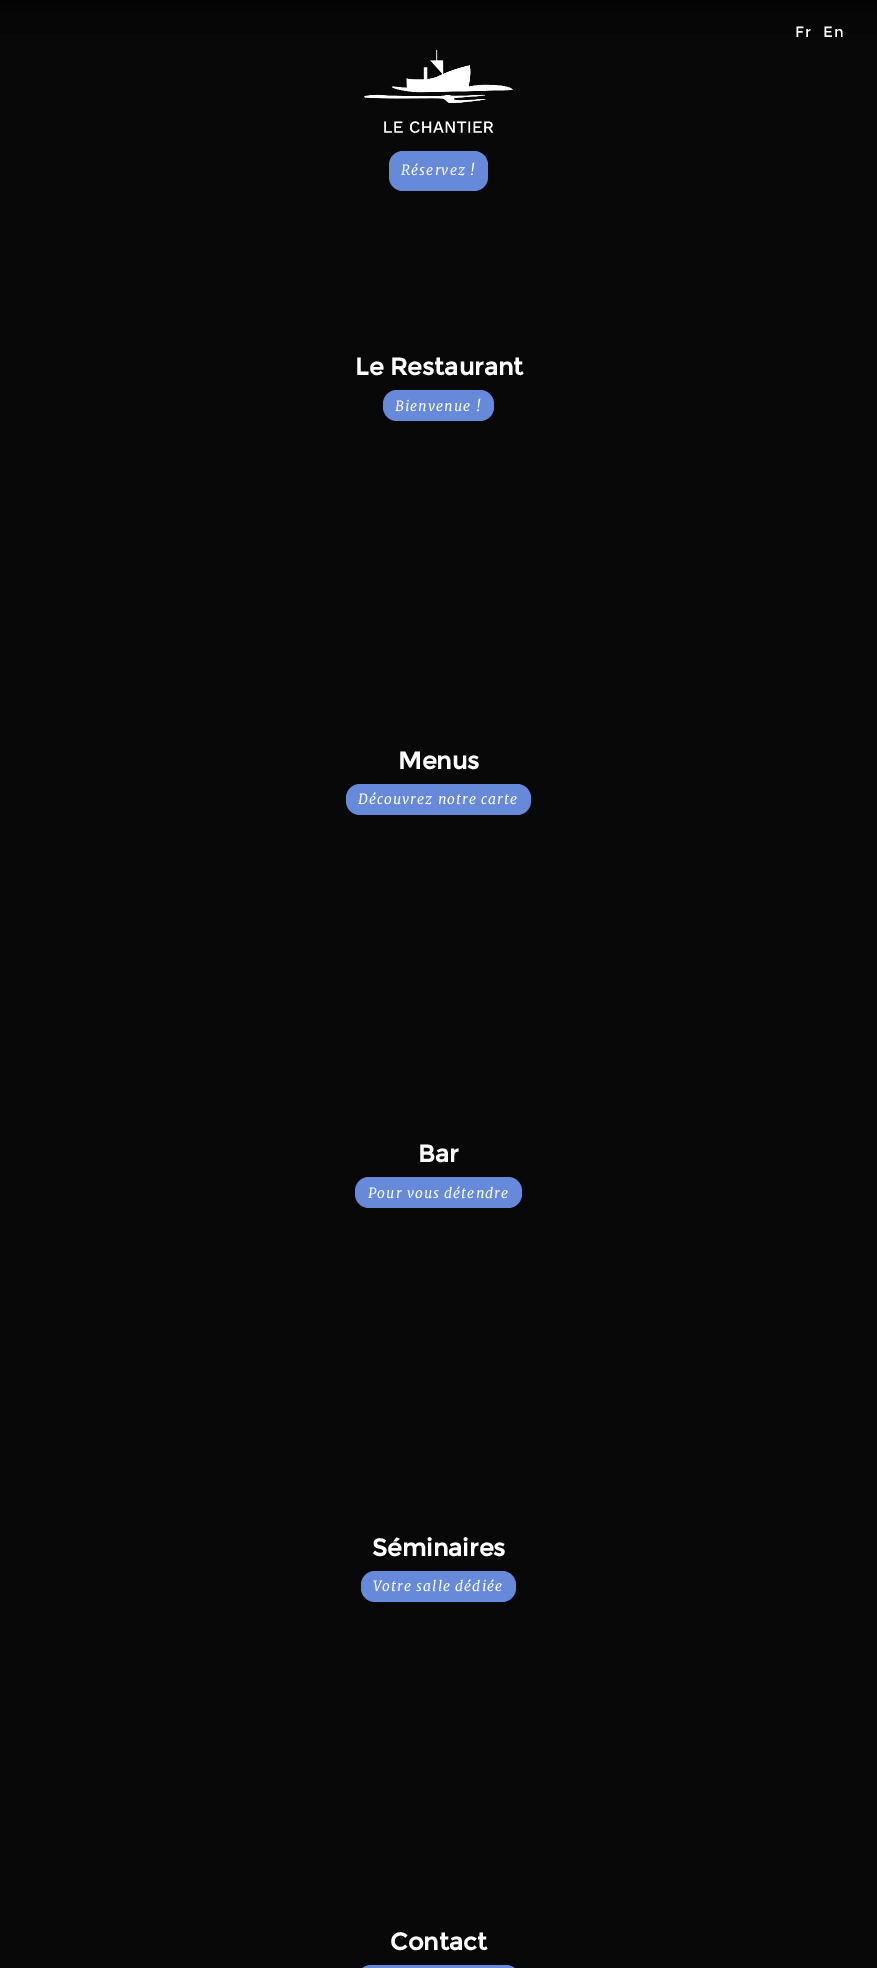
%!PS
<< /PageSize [877 1968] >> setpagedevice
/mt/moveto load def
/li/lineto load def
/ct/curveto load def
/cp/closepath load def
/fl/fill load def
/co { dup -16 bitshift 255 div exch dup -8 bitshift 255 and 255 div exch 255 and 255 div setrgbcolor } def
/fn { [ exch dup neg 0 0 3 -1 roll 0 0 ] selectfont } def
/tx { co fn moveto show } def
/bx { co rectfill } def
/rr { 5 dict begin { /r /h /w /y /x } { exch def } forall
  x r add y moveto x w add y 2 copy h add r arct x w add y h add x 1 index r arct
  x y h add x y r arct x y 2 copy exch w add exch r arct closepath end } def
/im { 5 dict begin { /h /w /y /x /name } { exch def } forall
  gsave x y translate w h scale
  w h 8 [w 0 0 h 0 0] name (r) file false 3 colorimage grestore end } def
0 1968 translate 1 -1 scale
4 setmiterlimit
0 0 877 1968 16#080808 bx
(media/1.raw) 0 0 877 34 im
(media/2.raw) 364 50 149 83 im
16#6789DA co
389 151 99 40 14 rr fl
383 390 111 31 14 rr fl
346 784 185 31 14 rr fl
355 1177 167 31 14 rr fl
361 1571 155 31 14 rr fl
371 1965 mt 506 1965 li 513.5 1965 520 1971.5 520 1979 ct 520 1968 li 357 1968 li 357 1979 li 357 1971.5 363.5 1965 371 1965 ct cp fl
/Montserrat-Regular 15 fn
16#FFFFFF co
795 37 mt 1 0 (Fr) ashow
823 37 mt 1 0 (En) ashow
/Merriweather-Italic 14 fn
401 175 mt 1 0 (Réservez !) ashow
(Le Restaurant) 355 375 /Montserrat-Bold 24 16#FFFFFF tx
/Merriweather-Italic 14 fn
395 411 mt 1 0 (Bienvenue !) ashow
(Menus) 398 769 /Montserrat-Bold 24 16#FFFFFF tx
/Merriweather-Italic 14 fn
358 804 mt 1 0 (Découvrez notre carte) ashow
(Bar) 418 1162 /Montserrat-Bold 24 16#FFFFFF tx
/Merriweather-Italic 14 fn
368 1198 mt 1 0 (Pour vous détendre) ashow
(Séminaires) 372 1556 /Montserrat-Bold 24 16#FFFFFF tx
/Merriweather-Italic 14 fn
373 1591 mt 1 0 (Votre salle dédiée) ashow
(Contact) 390 1950 /Montserrat-Bold 24 16#FFFFFF tx
showpage
